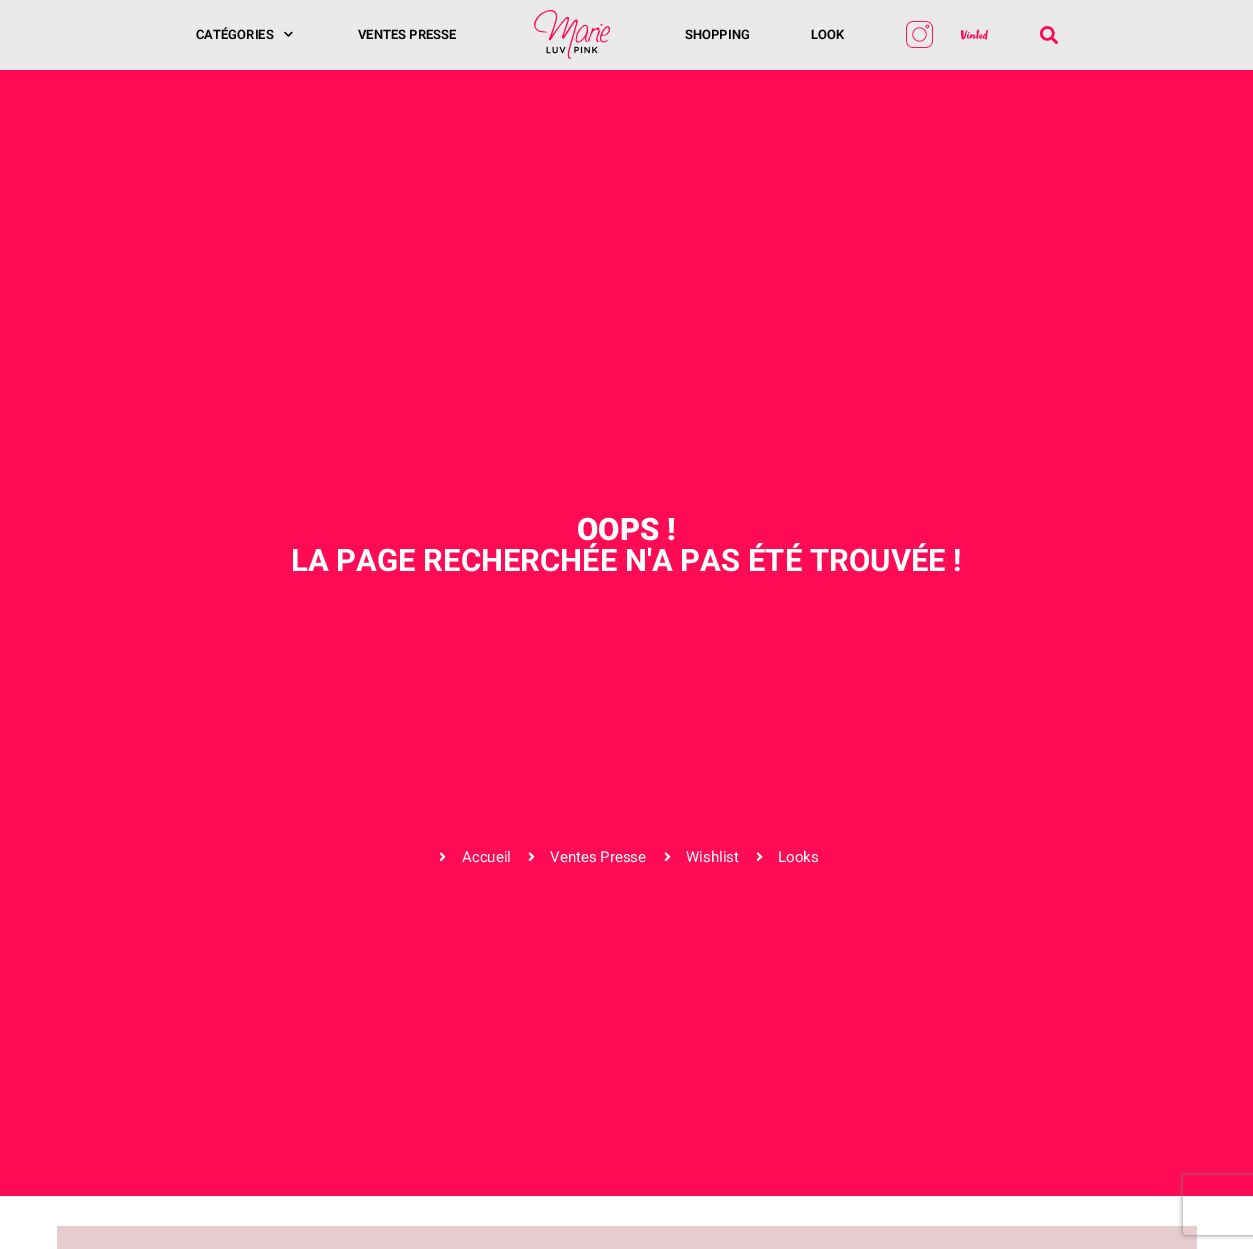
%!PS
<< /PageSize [1253 1249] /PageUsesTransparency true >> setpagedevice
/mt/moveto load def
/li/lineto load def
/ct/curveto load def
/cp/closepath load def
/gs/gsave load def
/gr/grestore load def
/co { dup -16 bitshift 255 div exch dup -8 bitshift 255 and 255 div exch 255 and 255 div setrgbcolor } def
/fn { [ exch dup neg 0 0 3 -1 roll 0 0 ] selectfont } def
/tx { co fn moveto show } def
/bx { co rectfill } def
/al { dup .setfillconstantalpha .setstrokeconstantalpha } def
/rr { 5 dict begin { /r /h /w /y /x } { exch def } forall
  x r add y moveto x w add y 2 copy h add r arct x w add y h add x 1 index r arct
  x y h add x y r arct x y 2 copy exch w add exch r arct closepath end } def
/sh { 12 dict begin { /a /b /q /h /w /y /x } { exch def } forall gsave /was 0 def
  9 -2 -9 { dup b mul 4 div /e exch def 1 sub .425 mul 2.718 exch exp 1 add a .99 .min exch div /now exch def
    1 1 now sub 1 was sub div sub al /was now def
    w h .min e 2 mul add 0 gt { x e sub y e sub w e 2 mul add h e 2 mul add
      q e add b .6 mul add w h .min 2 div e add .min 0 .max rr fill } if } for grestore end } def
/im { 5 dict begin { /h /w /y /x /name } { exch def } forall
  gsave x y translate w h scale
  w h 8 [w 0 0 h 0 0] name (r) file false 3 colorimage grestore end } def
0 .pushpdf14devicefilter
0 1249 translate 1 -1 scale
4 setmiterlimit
0 0 1253 1249 16#FFFFFF bx
0 0 1253 70 16#EAEAEA bx
(media/1.raw) 284 31 9 6 im
(media/2.raw) 534 10 76 49 im
(media/3.raw) 906 21 27 27 im
(media/4.raw) 961 29 27 11 im
(media/5.raw) 1039 26 19 19 im
0 70 1253 1126 16#FF0A54 bx
(media/6.raw) 439 852 7 10 im
(media/6.raw) 528 852 7 10 im
(media/6.raw) 664 852 7 10 im
(media/6.raw) 756 852 7 10 im
57 1226 1140 23 16#E6CCD0 bx
gs
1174 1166 mt 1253 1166 li 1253 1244 li 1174 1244 li cp 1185 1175 mt 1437 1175 li 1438 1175 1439 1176 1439 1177 ct 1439 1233 li 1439 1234 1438 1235 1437 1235 ct 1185 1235 li 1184 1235 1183 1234 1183 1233 ct 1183 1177 li 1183 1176 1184 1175 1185 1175 ct cp eoclip newpath
16#808080 co
1183 1175 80 60 2 2.5 1 sh
gr
(CATÉGORIES) 196 39 /Roboto-SemiBold 13 16#000000 tx
(VENTES PRESSE) 358 39 /Roboto-SemiBold 13 16#000000 tx
(SHOPPING) 685 39 /Roboto-SemiBold 13 16#000000 tx
(LOOK) 811 39 /Roboto-SemiBold 13 16#000000 tx
(OOPS !) 577 540 /Roboto-Black 31 16#FFFFFF tx
(LA PAGE RECHERCHÉE N'A PAS ÉTÉ TROUVÉE !) 291 571 /Roboto-Bold 31 16#FFFFFF tx
(Accueil) 462 862 /Roboto-Regular 15 16#FFFFFF tx
(Ventes Presse) 550 862 /Roboto-Regular 15 16#FFFFFF tx
(Wishlist) 686 862 /Roboto-Regular 15 16#FFFFFF tx
(Looks) 778 862 /Roboto-Regular 15 16#FFFFFF tx
.poppdf14devicefilter showpage
